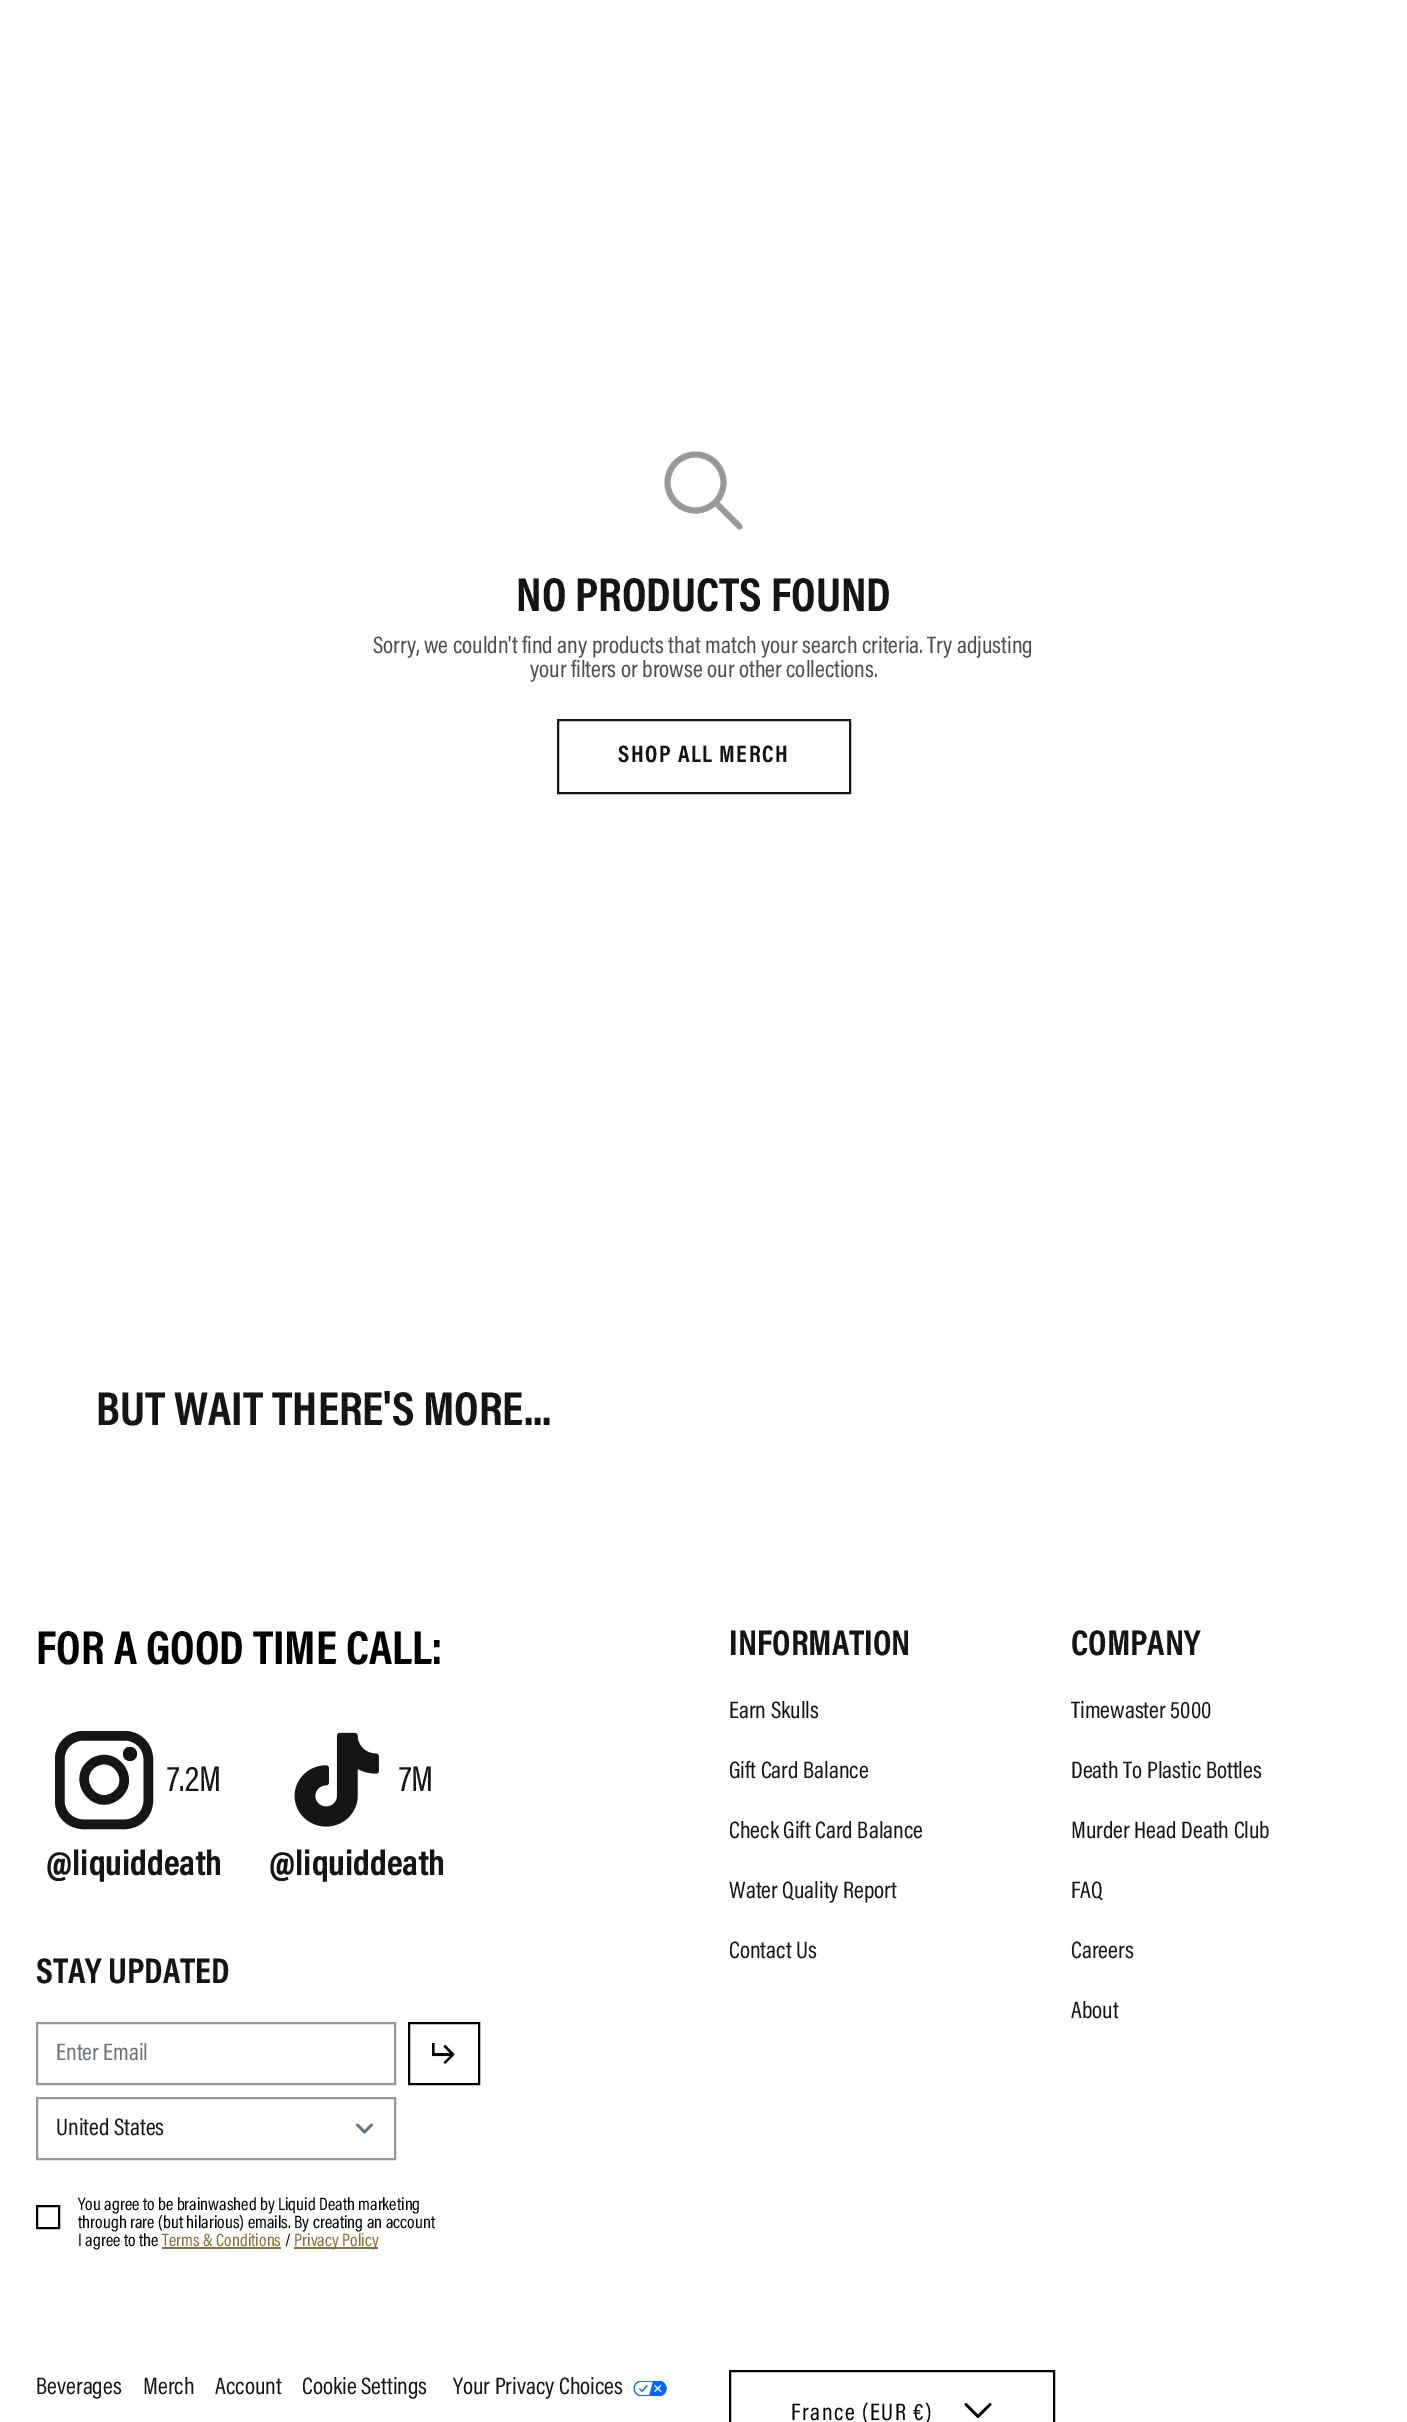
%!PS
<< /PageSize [1407 2422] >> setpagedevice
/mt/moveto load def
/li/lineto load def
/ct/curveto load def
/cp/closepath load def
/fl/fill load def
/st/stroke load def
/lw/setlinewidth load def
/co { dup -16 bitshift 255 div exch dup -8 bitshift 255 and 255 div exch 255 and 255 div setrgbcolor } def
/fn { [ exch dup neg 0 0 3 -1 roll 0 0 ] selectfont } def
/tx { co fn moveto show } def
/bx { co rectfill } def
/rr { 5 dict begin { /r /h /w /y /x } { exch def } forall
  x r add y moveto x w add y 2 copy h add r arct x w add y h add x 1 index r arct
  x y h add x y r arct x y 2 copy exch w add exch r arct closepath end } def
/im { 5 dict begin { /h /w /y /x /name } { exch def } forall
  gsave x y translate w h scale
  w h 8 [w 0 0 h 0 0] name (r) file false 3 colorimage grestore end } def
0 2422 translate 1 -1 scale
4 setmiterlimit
0 0 1407 2422 16#FFFFFF bx
16#999999 co
6 lw
1 setlinecap
1 setlinejoin
739.5 526.5 mt 715.5 502.5 li 723.5 482.5 mt 723.5 498 711 510.5 695.5 510.5 ct 680 510.5 667.5 498 667.5 482.5 ct 667.5 467 680 454.5 695.5 454.5 ct 711 454.5 723.5 467 723.5 482.5 ct cp st
16#151515 co
2 lw
0 setlinecap
0 setlinejoin
558 720 292 73 rectstroke
9.5 lw
59.75 1735.75 88.5 88.5 23.25 rr st
130 1761 mt 120.5 1761 121 1746.5 130 1747 ct 139.5 1747 139 1761 130 1761 ct cp fl
9.4 lw
93 1763 mt 115 1749 137 1781 115.5 1796 ct 94 1811.5 71 1778 93 1763 ct cp st
(media/1.raw) 294 1732 85 95 im
16#999999 co
2 lw
37 2023 358 61 rectstroke
16#000000 co
409 2023 70 61 rectstroke
(media/2.raw) 432 2043 23 21 im
16#6B7280 co
2.7 lw
1 setlinecap
1 setlinejoin
357.5 2125 mt 364.5 2132 li 371.5 2125 li st
16#999999 co
2 lw
0 setlinecap
0 setlinejoin
37 2098 358 61 rectstroke
16#000000 co
37 2206 22 22 rectstroke
162 2247 119 2 16#8A6D35 bx
294 2247 84 2 16#8A6D35 bx
(media/3.raw) 633 2381 34 15 im
16#000000 co
730 2371 324 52 rectstroke
(media/4.raw) 964 2403 28 15 im
(NO PRODUCTS FOUND) 516 611 /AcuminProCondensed-Bold 48 16#151515 tx
(Sorry, we couldn't find any products that match your search criteria. Try adjusting) 373 653 /AcuminProCondensed-Regular 24 16#4D4D4D tx
(your filters or browse our other collections.) 530 677 /AcuminProCondensed-Regular 24 16#4D4D4D tx
/AcuminProCondensed-Bold 24 fn
16#151515 co
618 762 mt 1.5 0 (SHOP ALL MERCH) ashow
(BUT WAIT THERE'S MORE...) 96 1425 /AcuminProCondensed-Bold 48 16#151515 tx
(FOR A GOOD TIME CALL:) 36 1664 /AcuminProCondensed-Bold 48 16#000000 tx
(7.2M) 167 1791 /AcuminProCondensed-Regular 36 16#151515 tx
(@liquiddeath) 46 1875 /AcuminProCondensed-Bold 36 16#151515 tx
(7M) 399 1791 /AcuminProCondensed-Regular 36 16#151515 tx
(@liquiddeath) 269 1875 /AcuminProCondensed-Bold 36 16#151515 tx
(STAY UPDATED) 36 1983 /AcuminProCondensed-Bold 36 16#151515 tx
(Enter Email) 56 2060 /AcuminProCondensed-Regular 24 16#6B7280 tx
(United States) 56 2135 /AcuminProCondensed-Regular 24 16#151515 tx
(You agree to be brainwashed by Liquid Death marketing) 78 2210 /AcuminProCondensed-Regular 18 16#000000 tx
(through rare \(but hilarious\) emails. By creating an account) 78 2228 /AcuminProCondensed-Regular 18 16#000000 tx
(I agree to the) 78 2246 /AcuminProCondensed-Regular 18 16#000000 tx
(Terms & Conditions) 162 2246 /AcuminProCondensed-Regular 18 16#8A6D35 tx
(/) 285 2246 /AcuminProCondensed-Regular 18 16#000000 tx
(Privacy Policy) 294 2246 /AcuminProCondensed-Regular 18 16#8A6D35 tx
(INFORMATION) 729 1655 /AcuminProCondensed-Bold 36 16#151515 tx
(Earn Skulls) 729 1718 /AcuminProCondensed-Regular 24 16#151515 tx
(Gift Card Balance) 729 1778 /AcuminProCondensed-Regular 24 16#151515 tx
(Check Gift Card Balance) 729 1838 /AcuminProCondensed-Regular 24 16#151515 tx
(Water Quality Report) 729 1898 /AcuminProCondensed-Regular 24 16#151515 tx
(Contact Us) 729 1958 /AcuminProCondensed-Regular 24 16#151515 tx
(COMPANY) 1071 1655 /AcuminProCondensed-Bold 36 16#151515 tx
(Timewaster 5000) 1071 1718 /AcuminProCondensed-Regular 24 16#151515 tx
(Death To Plastic Bottles) 1071 1778 /AcuminProCondensed-Regular 24 16#151515 tx
(Murder Head Death Club) 1071 1838 /AcuminProCondensed-Regular 24 16#151515 tx
(FAQ) 1071 1898 /AcuminProCondensed-Regular 24 16#151515 tx
(Careers) 1071 1958 /AcuminProCondensed-Regular 24 16#151515 tx
(About) 1071 2018 /AcuminProCondensed-Regular 24 16#151515 tx
(Beverages) 36 2394 /AcuminProCondensed-Regular 24 16#151515 tx
(Merch) 143 2394 /AcuminProCondensed-Regular 24 16#151515 tx
(Account) 215 2394 /AcuminProCondensed-Regular 24 16#151515 tx
(Cookie Settings) 302 2394 /AcuminProCondensed-Regular 24 16#151515 tx
(Your Privacy Choices) 453 2394 /AcuminProCondensed-Regular 24 16#151515 tx
16#000000 co
791 2420 mt 1.5 0 (France \(EUR €\)) ashow
showpage
